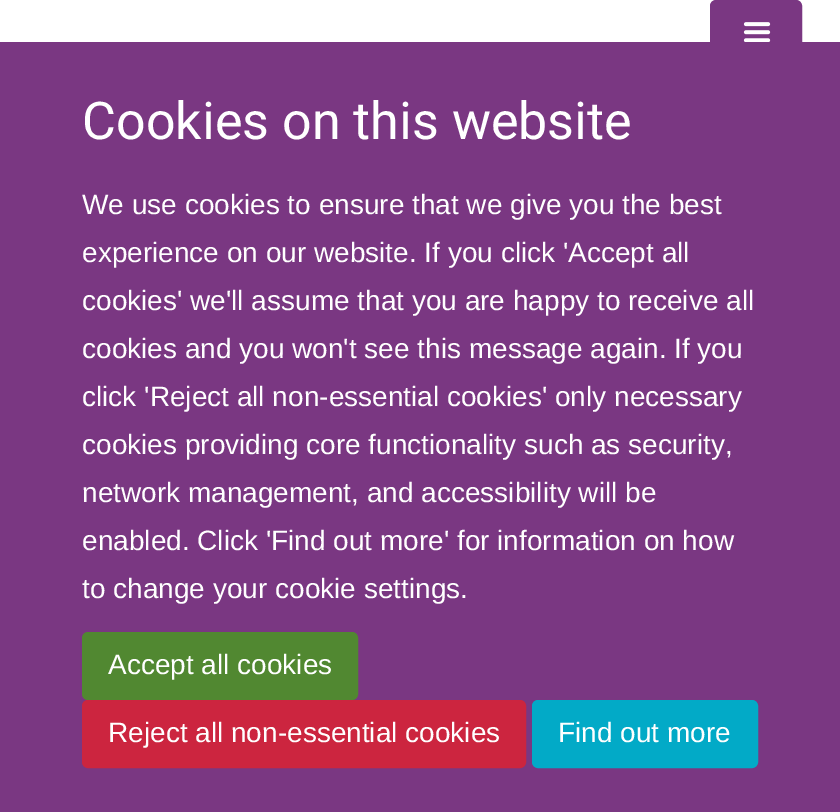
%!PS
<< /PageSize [840 812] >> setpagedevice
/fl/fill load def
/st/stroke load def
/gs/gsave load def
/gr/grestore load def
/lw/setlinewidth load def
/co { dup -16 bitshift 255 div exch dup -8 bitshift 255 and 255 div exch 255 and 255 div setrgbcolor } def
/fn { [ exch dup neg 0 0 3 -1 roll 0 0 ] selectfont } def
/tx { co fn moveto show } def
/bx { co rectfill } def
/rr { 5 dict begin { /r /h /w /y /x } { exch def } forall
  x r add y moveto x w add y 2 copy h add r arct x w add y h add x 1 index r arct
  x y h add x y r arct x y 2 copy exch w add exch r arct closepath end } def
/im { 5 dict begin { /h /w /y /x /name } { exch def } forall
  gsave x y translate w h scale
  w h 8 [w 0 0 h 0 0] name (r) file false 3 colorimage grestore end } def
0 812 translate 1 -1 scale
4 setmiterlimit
0 0 840 812 16#FFFFFF bx
16#7A3782 co
711 1 90 66 5 rr gs fl gr
2 lw
st
(media/1.raw) 743 22 28 20 im
0 42 840 770 16#7A3782 bx
16#518831 co
83 633 274 66 5 rr gs fl gr
st
16#CC253F co
83 701 442 66 5 rr gs fl gr
st
16#02AAC7 co
533 701 224 66 5 rr gs fl gr
st
(Cookies on this website) 82 139 /Heebo-Regular 52 16#FFFFFF tx
(We use cookies to ensure that we give you the best) 82 214 /LiberationSans-Regular 28 16#FFFFFF tx
(experience on our website. If you click 'Accept all) 82 262 /LiberationSans-Regular 28 16#FFFFFF tx
(cookies' we'll assume that you are happy to receive all) 82 310 /LiberationSans-Regular 28 16#FFFFFF tx
(cookies and you won't see this message again. If you) 82 358 /LiberationSans-Regular 28 16#FFFFFF tx
(click 'Reject all non-essential cookies' only necessary) 82 406 /LiberationSans-Regular 28 16#FFFFFF tx
(cookies providing core functionality such as security,) 82 454 /LiberationSans-Regular 28 16#FFFFFF tx
(network management, and accessibility will be) 82 502 /LiberationSans-Regular 28 16#FFFFFF tx
(enabled. Click 'Find out more' for information on how) 82 550 /LiberationSans-Regular 28 16#FFFFFF tx
(to change your cookie settings.) 82 598 /LiberationSans-Regular 28 16#FFFFFF tx
(Accept all cookies) 108 674 /LiberationSans-Regular 28 16#FFFFFF tx
(Reject all non-essential cookies) 108 742 /LiberationSans-Regular 28 16#FFFFFF tx
(Find out more) 558 742 /LiberationSans-Regular 28 16#FFFFFF tx
showpage
